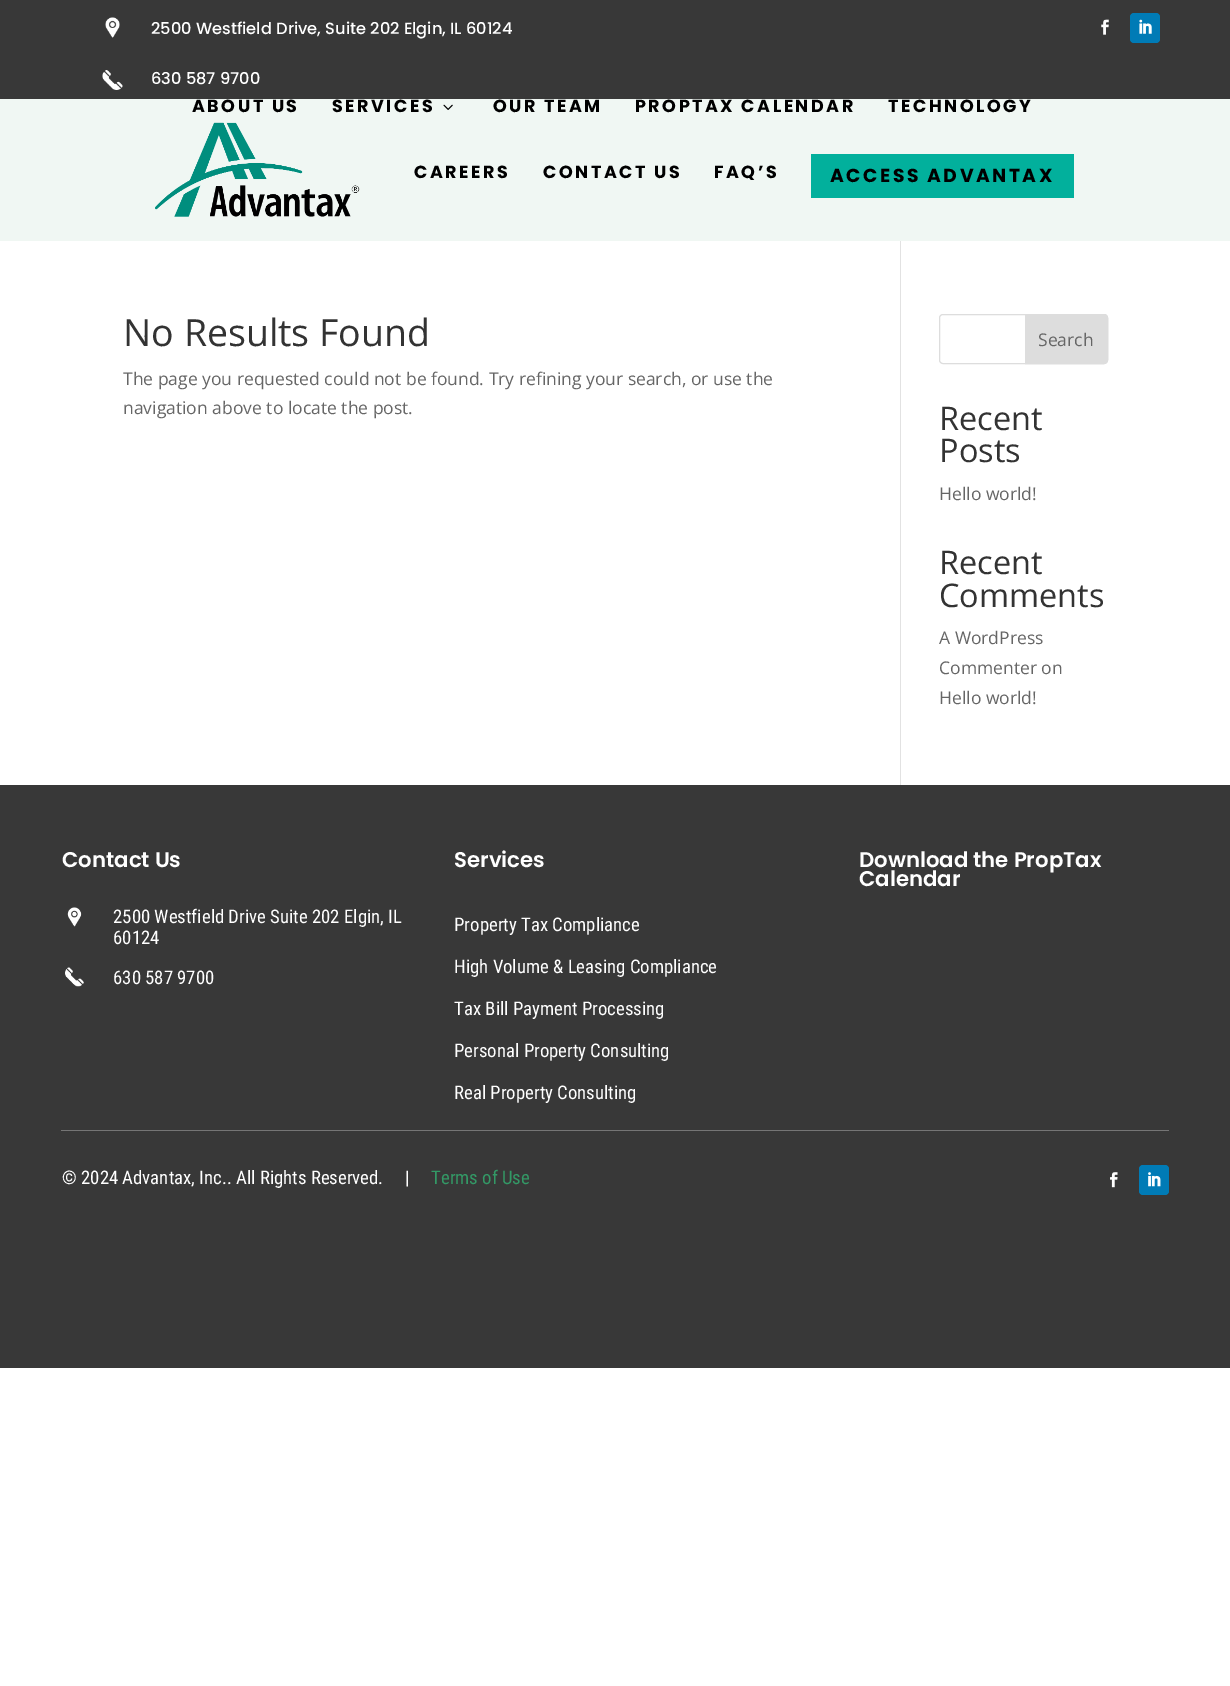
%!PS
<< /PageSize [1230 1686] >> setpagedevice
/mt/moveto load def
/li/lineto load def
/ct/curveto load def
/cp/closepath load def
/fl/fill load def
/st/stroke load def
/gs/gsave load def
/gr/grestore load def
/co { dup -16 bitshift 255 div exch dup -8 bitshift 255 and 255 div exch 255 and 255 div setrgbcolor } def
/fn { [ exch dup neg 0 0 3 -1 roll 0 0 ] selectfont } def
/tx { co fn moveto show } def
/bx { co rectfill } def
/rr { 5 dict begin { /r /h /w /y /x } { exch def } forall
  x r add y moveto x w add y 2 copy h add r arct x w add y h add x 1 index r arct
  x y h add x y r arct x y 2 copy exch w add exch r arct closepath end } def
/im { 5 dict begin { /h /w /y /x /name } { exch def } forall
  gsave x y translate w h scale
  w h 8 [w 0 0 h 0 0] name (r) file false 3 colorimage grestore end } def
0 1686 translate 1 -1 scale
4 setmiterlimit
0 0 1230 1686 16#FFFFFF bx
0 0 1230 99 16#383838 bx
(media/1.raw) 105 17 15 21 im
(media/2.raw) 102 70 21 20 im
(media/3.raw) 1101 19 8 16 im
16#007BB6 co
1130 13 30 30 4 rr fl
(media/4.raw) 1139 19 13 15 im
0 99 1230 142 16#F0F7F3 bx
(media/5.raw) 443 104 10 6 im
(media/6.raw) 155 122 205 95 im
811 154 263 44 16#02B09C bx
900 241 1 544 16#E2E2E2 bx
16#DDDDDD co
939.5 314.5 168 49 3.5 rr st
1025.5 314.5 mt 1104 314.5 li 1106 314.5 1107.5 316 1107.5 318 ct 1107.5 360 li 1107.5 362 1106 363.5 1104 363.5 ct 1025.5 363.5 li cp gs fl gr
st
0 785 1230 583 16#383838 bx
61 1130 1108 1 16#757575 bx
(media/7.raw) 67 907 15 20 im
(media/8.raw) 65 967 19 20 im
(media/9.raw) 1110 1172 8 16 im
16#007BB6 co
1139 1165 30 30 4 rr fl
(media/10.raw) 1148 1172 13 15 im
(2500 Westfield Drive, Suite 202 Elgin, IL 60124) 151 34 /Poppins-Medium 16.25 16#FFFFFF tx
(630 587 9700) 151 84 /Poppins-Medium 16.25 16#FFFFFF tx
/Poppins-Bold 17.5 fn
16#000000 co
192 112 mt 2.5 0 (ABOUT US) ashow
332 112 mt 2.5 0 (SERVICES) ashow
493 112 mt 2.5 0 (OUR TEAM) ashow
635 112 mt 2.5 0 (PROPTAX CALENDAR) ashow
888 112 mt 2.5 0 (TECHNOLOGY) ashow
414 178 mt 2.5 0 (CAREERS) ashow
543 178 mt 2.5 0 (CONTACT US) ashow
714 178 mt 2.5 0 (FAQ’S) ashow
/Poppins-Bold 18.75 fn
830 182 mt 2.5 0 (ACCESS ADVANTAX) ashow
(No Results Found) 123 346 /OpenSans-Regular 37.5 16#333333 tx
(The page you requested could not be found. Try refining your search, or use the) 123 385 /OpenSans-Regular 17.5 16#666666 tx
(navigation above to locate the post.) 123 414 /OpenSans-Regular 17.5 16#666666 tx
(Search) 1038 346 /OpenSans-Regular 17.5 16#666666 tx
(Recent) 939 430 /OpenSans-Regular 32.5 16#333333 tx
(Posts) 939 462 /OpenSans-Regular 32.5 16#333333 tx
(Hello world!) 939 500 /OpenSans-Regular 17.5 16#666666 tx
(Recent) 939 574 /OpenSans-Regular 32.5 16#333333 tx
(Comments) 939 607 /OpenSans-Regular 32.5 16#333333 tx
(A WordPress) 939 644 /OpenSans-Regular 17.5 16#666666 tx
(Commenter on) 939 674 /OpenSans-Regular 17.5 16#666666 tx
(Hello world!) 939 704 /OpenSans-Regular 17.5 16#666666 tx
(Contact Us) 62 867 /Poppins-SemiBold 21.25 16#FFFFFF tx
(2500 Westfield Drive Suite 202 Elgin, IL) 113 923 /RobotoCondensed-Regular 18.75 16#FFFFFF tx
(60124) 113 944 /RobotoCondensed-Regular 18.75 16#FFFFFF tx
(630 587 9700) 113 984 /RobotoCondensed-Regular 18.75 16#FFFFFF tx
(Services) 454 867 /Poppins-SemiBold 21.25 16#FFFFFF tx
(Property Tax Compliance) 454 931 /RobotoCondensed-Regular 18.75 16#FFFFFF tx
(High Volume & Leasing Compliance) 454 973 /RobotoCondensed-Regular 18.75 16#FFFFFF tx
(Tax Bill Payment Processing) 454 1015 /RobotoCondensed-Regular 18.75 16#FFFFFF tx
(Personal Property Consulting) 454 1057 /RobotoCondensed-Regular 18.75 16#FFFFFF tx
(Real Property Consulting) 454 1099 /RobotoCondensed-Regular 18.75 16#FFFFFF tx
(Download the PropTax) 859 867 /Poppins-SemiBold 21.25 16#FFFFFF tx
(Calendar) 859 886 /Poppins-SemiBold 21.25 16#FFFFFF tx
(© 2024 Advantax, Inc.. All Rights Reserved.     |) 62 1184 /RobotoCondensed-Regular 18.75 16#FFFFFF tx
(Terms of Use) 431 1184 /RobotoCondensed-Regular 18.75 16#339966 tx
showpage
